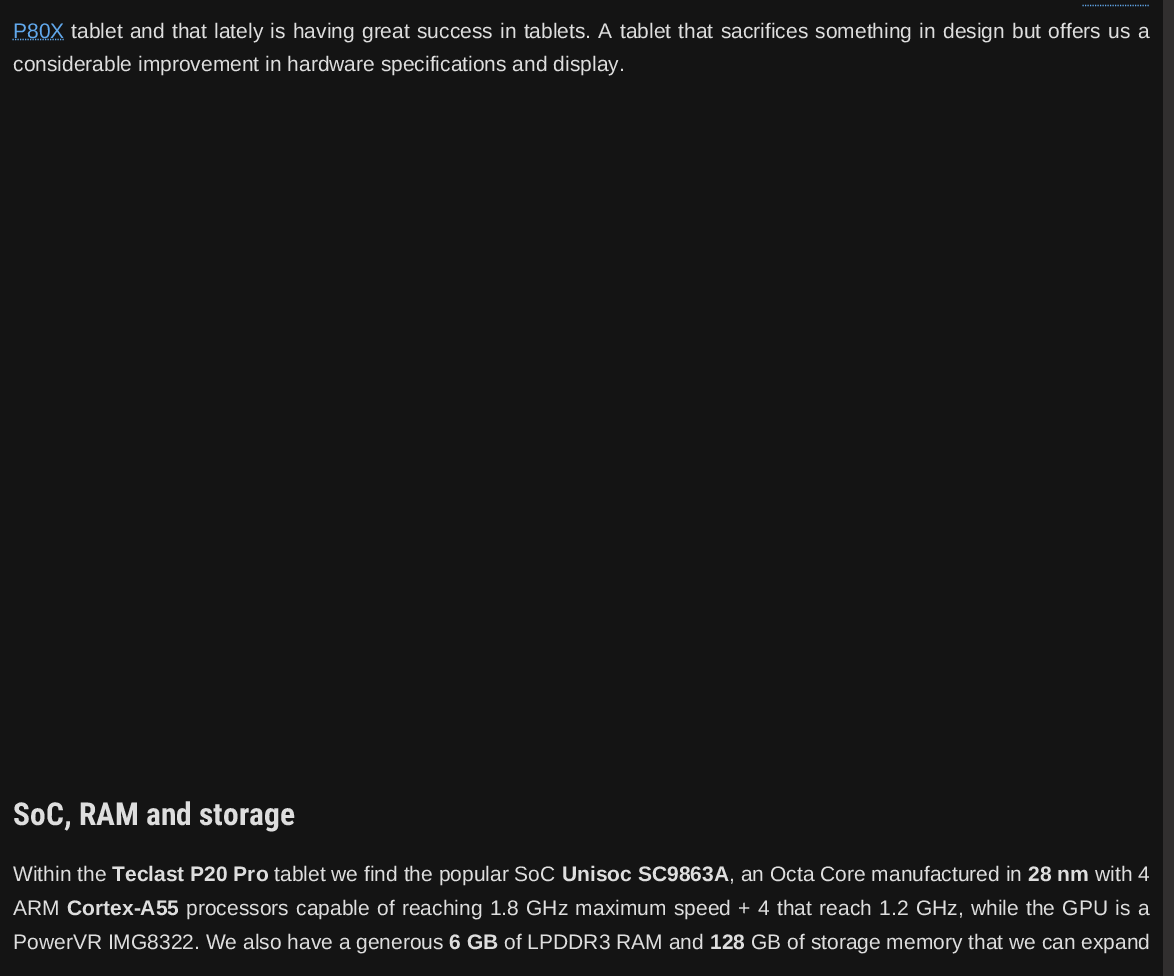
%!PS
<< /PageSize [1174 976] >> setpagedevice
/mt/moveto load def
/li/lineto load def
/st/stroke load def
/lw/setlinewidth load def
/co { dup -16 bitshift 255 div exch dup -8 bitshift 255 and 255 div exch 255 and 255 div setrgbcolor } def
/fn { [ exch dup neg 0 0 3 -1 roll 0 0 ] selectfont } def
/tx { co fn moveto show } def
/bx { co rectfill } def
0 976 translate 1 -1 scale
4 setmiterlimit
0 0 1174 976 16#312F2F bx
0 0 1163 976 16#141414 bx
16#61A8EC co
1.2 lw
[1.25 1.25] 0 setdash
1082.5 5.5 mt 1150 5.5 li st
12.5 39.5 mt 64 39.5 li st
(P80X) 13 38 /LiberationSans-Regular 21 16#61A8EC tx
16#DEDEDE co
71 38 mt 1.4 0 32 (tablet and that lately is having great success in tablets. A tablet that sacrifices something in design but offers us a) widthshow
(considerable improvement in hardware specifications and display.) 13 71 /LiberationSans-Regular 21 16#DEDEDE tx
(SoC, RAM and storage) 13 825 /RobotoCondensed-Bold 31.5 16#DEDEDE tx
(Within the) 13 881 /LiberationSans-Regular 21 16#DEDEDE tx
(Teclast P20 Pro) 112 881 /LiberationSans-Bold 21 16#DEDEDE tx
(tablet we find the popular SoC) 274 881 /LiberationSans-Regular 21 16#DEDEDE tx
(Unisoc SC9863A) 562 881 /LiberationSans-Bold 21 16#DEDEDE tx
(, an Octa Core manufactured in) 729 881 /LiberationSans-Regular 21 16#DEDEDE tx
(28 nm) 1028 881 /LiberationSans-Bold 21 16#DEDEDE tx
(with 4) 1095 881 /LiberationSans-Regular 21 16#DEDEDE tx
(ARM) 13 915 /LiberationSans-Regular 21 16#DEDEDE tx
(Cortex-A55) 67 915 /LiberationSans-Bold 21 16#DEDEDE tx
/LiberationSans-Regular 21 fn
186 915 mt 1.5 0 32 (processors capable of reaching 1.8 GHz maximum speed + 4 that reach 1.2 GHz, while the GPU is a) widthshow
(PowerVR IMG8322. We also have a generous) 13 949 /LiberationSans-Regular 21 16#DEDEDE tx
(6 GB) 449 949 /LiberationSans-Bold 21 16#DEDEDE tx
(of LPDDR3 RAM and) 504 949 /LiberationSans-Regular 21 16#DEDEDE tx
(128) 710 949 /LiberationSans-Bold 21 16#DEDEDE tx
(GB of storage memory that we can expand) 751 949 /LiberationSans-Regular 21 16#DEDEDE tx
showpage
